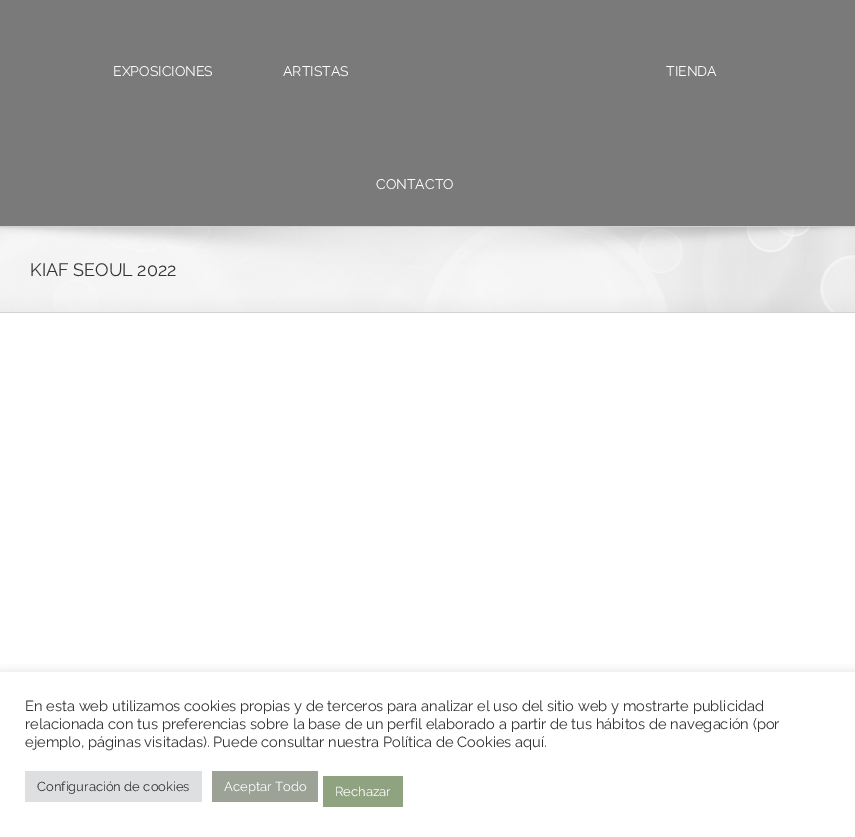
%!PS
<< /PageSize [855 837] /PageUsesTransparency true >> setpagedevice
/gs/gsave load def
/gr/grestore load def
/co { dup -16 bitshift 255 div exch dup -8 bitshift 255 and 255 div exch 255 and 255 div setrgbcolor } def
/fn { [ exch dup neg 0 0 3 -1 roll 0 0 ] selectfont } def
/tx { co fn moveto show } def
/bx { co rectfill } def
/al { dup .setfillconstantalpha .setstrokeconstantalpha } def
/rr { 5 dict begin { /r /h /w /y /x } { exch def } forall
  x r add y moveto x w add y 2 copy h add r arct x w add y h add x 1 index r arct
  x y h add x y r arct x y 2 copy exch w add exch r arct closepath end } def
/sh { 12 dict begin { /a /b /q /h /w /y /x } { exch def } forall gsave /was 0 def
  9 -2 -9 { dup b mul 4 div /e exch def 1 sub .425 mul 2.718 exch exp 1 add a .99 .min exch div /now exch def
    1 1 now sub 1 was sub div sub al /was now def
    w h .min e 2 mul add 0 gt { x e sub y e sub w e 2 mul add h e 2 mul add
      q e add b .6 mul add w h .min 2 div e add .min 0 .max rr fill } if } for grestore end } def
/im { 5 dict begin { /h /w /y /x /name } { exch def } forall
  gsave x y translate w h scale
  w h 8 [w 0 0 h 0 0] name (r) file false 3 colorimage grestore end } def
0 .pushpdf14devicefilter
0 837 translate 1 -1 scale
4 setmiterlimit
0 0 855 837 16#FFFFFF bx
0 0 855 226 16#7A7A7A bx
0 227 855 85 16#F6F6F6 bx
(media/1.raw) 0 227 855 85 im
0 226 855 1 16#D2D3D4 bx
0 312 855 1 16#D2D3D4 bx
gs
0 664 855 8 rectclip
16#ACABAB co
0 671 855 165 0 5 .3 sh
gr
25 771 177 31 16#DEDFE0 bx
212 771 106 31 16#9CA396 bx
323 776 80 31 16#90A380 bx
(EXPOSICIONES) 113 76 /Raleway-Regular 14 16#FFFFFF tx
(ARTISTAS) 283 76 /Raleway-Regular 14 16#FFFFFF tx
(TIENDA) 666 76 /Raleway-Regular 14 16#FFFFFF tx
(CONTACTO) 376 189 /Raleway-Regular 14 16#FFFFFF tx
(KIAF SEOUL 2022) 30 276 /Raleway-Regular 18 16#333333 tx
(En esta web utilizamos cookies propias y de terceros para analizar el uso del sitio web y mostrarte publicidad) 25 711 /Raleway-Regular 14.67 16#333333 tx
(relacionada con tus preferencias sobre la base de un perfil elaborado a partir de tus hábitos de navegación \(por) 25 729 /Raleway-Regular 14.67 16#333333 tx
(ejemplo, páginas visitadas\). Puede consultar nuestra Política de Cookies aquí.) 25 747 /Raleway-Regular 14.67 16#333333 tx
(Configuración de cookies) 37 791 /Raleway-Regular 13 16#333333 tx
(Aceptar Todo) 224 791 /Raleway-Regular 13 16#FFFFFF tx
(Rechazar) 335 796 /Raleway-Regular 13 16#FFFFFF tx
.poppdf14devicefilter showpage
